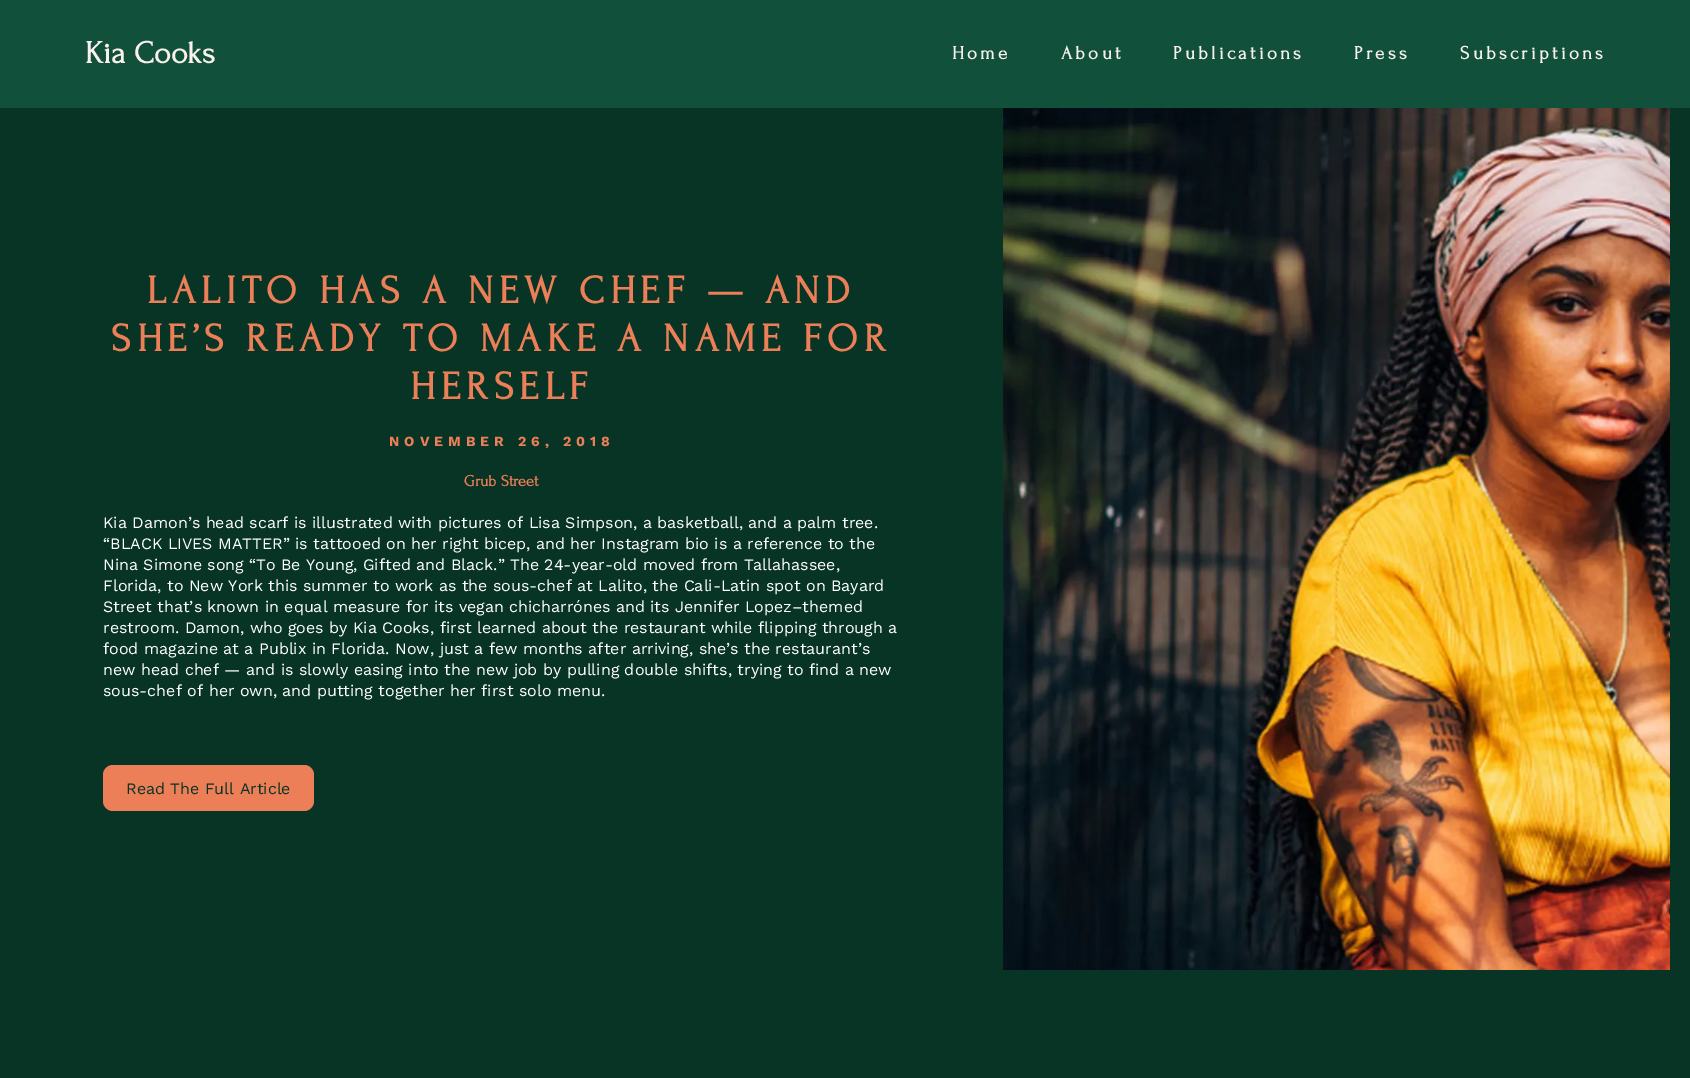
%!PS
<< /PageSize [1690 1078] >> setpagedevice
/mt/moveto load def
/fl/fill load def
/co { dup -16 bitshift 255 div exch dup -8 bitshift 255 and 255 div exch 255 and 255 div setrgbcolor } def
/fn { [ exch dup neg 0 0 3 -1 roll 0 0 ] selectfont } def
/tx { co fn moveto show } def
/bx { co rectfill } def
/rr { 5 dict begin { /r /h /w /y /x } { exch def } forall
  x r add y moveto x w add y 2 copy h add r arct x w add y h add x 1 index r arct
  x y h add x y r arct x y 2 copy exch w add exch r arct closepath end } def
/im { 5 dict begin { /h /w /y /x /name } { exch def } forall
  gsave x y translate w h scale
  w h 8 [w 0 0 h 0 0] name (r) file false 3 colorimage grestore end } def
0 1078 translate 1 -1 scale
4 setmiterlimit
0 0 1690 1078 16#073425 bx
0 0 1690 108 16#11513B bx
16#EC7F57 co
103 765 211 46 10 rr fl
(media/1.raw) 1003 108 667 862 im
(Kia Cooks) 85 63 /Forum-Bold 32 16#FBF1EC tx
/Forum-Bold 19 fn
952 59 mt 3.25 0 (Home) ashow
1061 59 mt 3.25 0 (About) ashow
1173 59 mt 3.25 0 (Publications) ashow
1354 59 mt 3.25 0 (Press) ashow
1460 59 mt 3.25 0 (Subscriptions) ashow
/Forum-Bold 40 fn
16#EC7F57 co
147 303 mt 6 0 (LALITO HAS A NEW CHEF — AND) ashow
111 351 mt 6 0 (SHE’S READY TO MAKE A NAME FOR) ashow
410 399 mt 6 0 (HERSELF) ashow
/WorkSans-Bold 14 fn
389 446 mt 5 0 (NOVEMBER 26, 2018) ashow
(Grub Street) 464 486 /Forum-Bold 16 16#EC7F57 tx
(Kia Damon’s head scarf is illustrated with pictures of Lisa Simpson, a basketball, and a palm tree.) 103 528 /WorkSans-Regular 16 16#FFFFFF tx
(“BLACK LIVES MATTER” is tattooed on her right bicep, and her Instagram bio is a reference to the) 103 549 /WorkSans-Regular 16 16#FFFFFF tx
(Nina Simone song “To Be Young, Gifted and Black.” The 24-year-old moved from Tallahassee,) 103 570 /WorkSans-Regular 16 16#FFFFFF tx
(Florida, to New York this summer to work as the sous-chef at Lalito, the Cali-Latin spot on Bayard) 103 591 /WorkSans-Regular 16 16#FFFFFF tx
(Street that’s known in equal measure for its vegan chicharrónes and its Jennifer Lopez–themed) 103 612 /WorkSans-Regular 16 16#FFFFFF tx
(restroom. Damon, who goes by Kia Cooks, first learned about the restaurant while flipping through a) 103 633 /WorkSans-Regular 16 16#FFFFFF tx
(food magazine at a Publix in Florida. Now, just a few months after arriving, she’s the restaurant’s) 103 654 /WorkSans-Regular 16 16#FFFFFF tx
(new head chef — and is slowly easing into the new job by pulling double shifts, trying to find a new) 103 675 /WorkSans-Regular 16 16#FFFFFF tx
(sous-chef of her own, and putting together her first solo menu.) 103 696 /WorkSans-Regular 16 16#FFFFFF tx
(Read The Full Article) 126 794 /WorkSans-Regular 16 16#073425 tx
showpage
